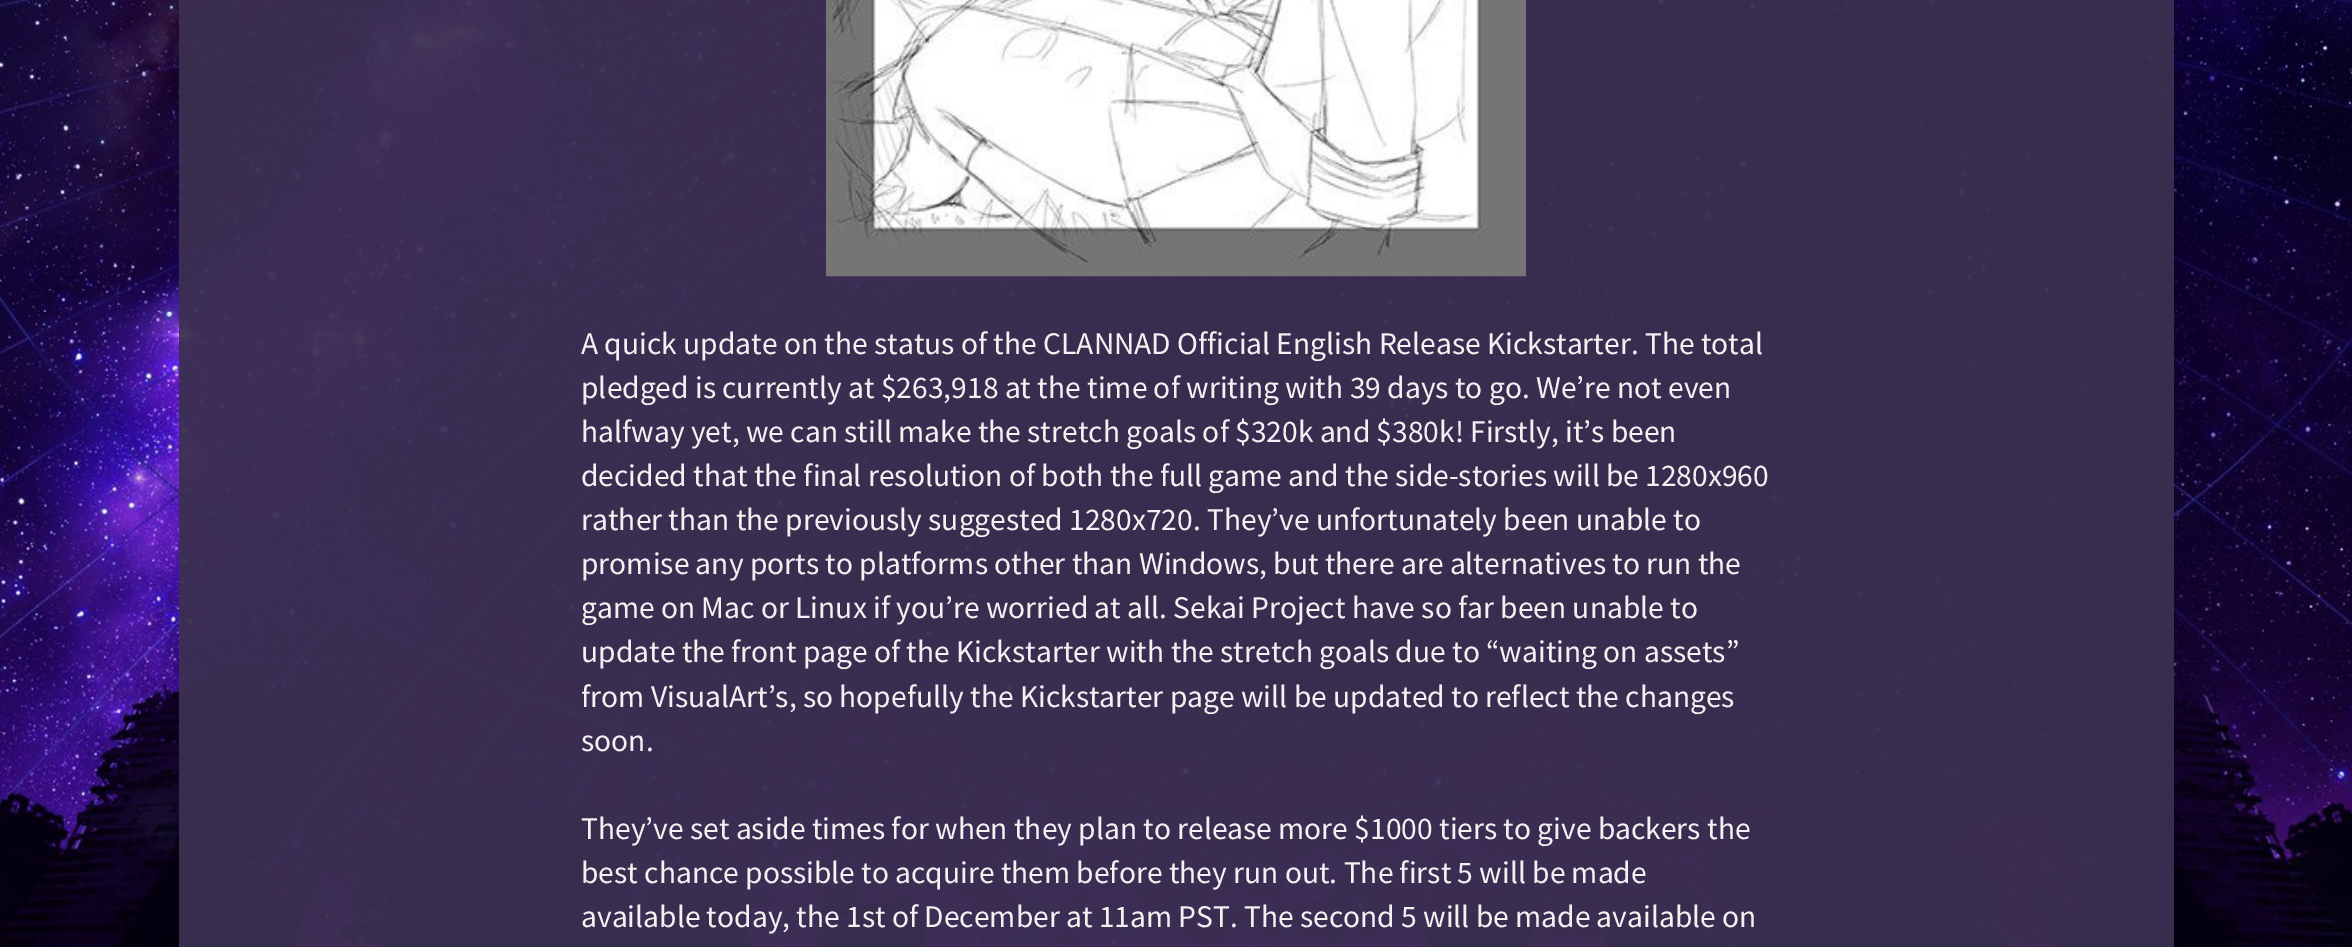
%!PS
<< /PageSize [2352 947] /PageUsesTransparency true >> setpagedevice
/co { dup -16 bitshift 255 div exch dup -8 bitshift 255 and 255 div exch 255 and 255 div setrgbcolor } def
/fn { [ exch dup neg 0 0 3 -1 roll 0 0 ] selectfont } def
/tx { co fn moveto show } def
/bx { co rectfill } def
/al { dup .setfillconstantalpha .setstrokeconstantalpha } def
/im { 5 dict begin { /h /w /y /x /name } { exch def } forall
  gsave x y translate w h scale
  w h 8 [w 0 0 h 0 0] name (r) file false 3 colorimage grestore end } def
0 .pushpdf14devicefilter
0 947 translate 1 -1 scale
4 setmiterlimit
0 0 2352 947 16#FFFFFF bx
(media/1.raw) 0 0 2352 947 im
0.95 al
179 0 1995 947 16#3B2F51 bx
1 al
(media/2.raw) 826 0 700 277 im
(A quick update on the status of the CLANNAD Official English Release Kickstarter. The total) 581 354 /SourceSansPro-Regular 31.5 16#F2F2F2 tx
(pledged is currently at $263,918 at the time of writing with 39 days to go. We’re not even) 581 398 /SourceSansPro-Regular 31.5 16#F2F2F2 tx
(halfway yet, we can still make the stretch goals of $320k and $380k! Firstly, it’s been) 581 442 /SourceSansPro-Regular 31.5 16#F2F2F2 tx
(decided that the final resolution of both the full game and the side-stories will be 1280x960) 581 486 /SourceSansPro-Regular 31.5 16#F2F2F2 tx
(rather than the previously suggested 1280x720. They’ve unfortunately been unable to) 581 530 /SourceSansPro-Regular 31.5 16#F2F2F2 tx
(promise any ports to platforms other than Windows, but there are alternatives to run the) 581 574 /SourceSansPro-Regular 31.5 16#F2F2F2 tx
(game on Mac or Linux if you’re worried at all. Sekai Project have so far been unable to) 581 618 /SourceSansPro-Regular 31.5 16#F2F2F2 tx
(update the front page of the Kickstarter with the stretch goals due to “waiting on assets”) 581 662 /SourceSansPro-Regular 31.5 16#F2F2F2 tx
(from VisualArt’s, so hopefully the Kickstarter page will be updated to reflect the changes) 581 707 /SourceSansPro-Regular 31.5 16#F2F2F2 tx
(soon.) 581 751 /SourceSansPro-Regular 31.5 16#F2F2F2 tx
(They’ve set aside times for when they plan to release more $1000 tiers to give backers the) 581 839 /SourceSansPro-Regular 31.5 16#F2F2F2 tx
(best chance possible to acquire them before they run out. The first 5 will be made) 581 883 /SourceSansPro-Regular 31.5 16#F2F2F2 tx
(available today, the 1st of December at 11am PST. The second 5 will be made available on) 581 927 /SourceSansPro-Regular 31.5 16#F2F2F2 tx
.poppdf14devicefilter showpage
